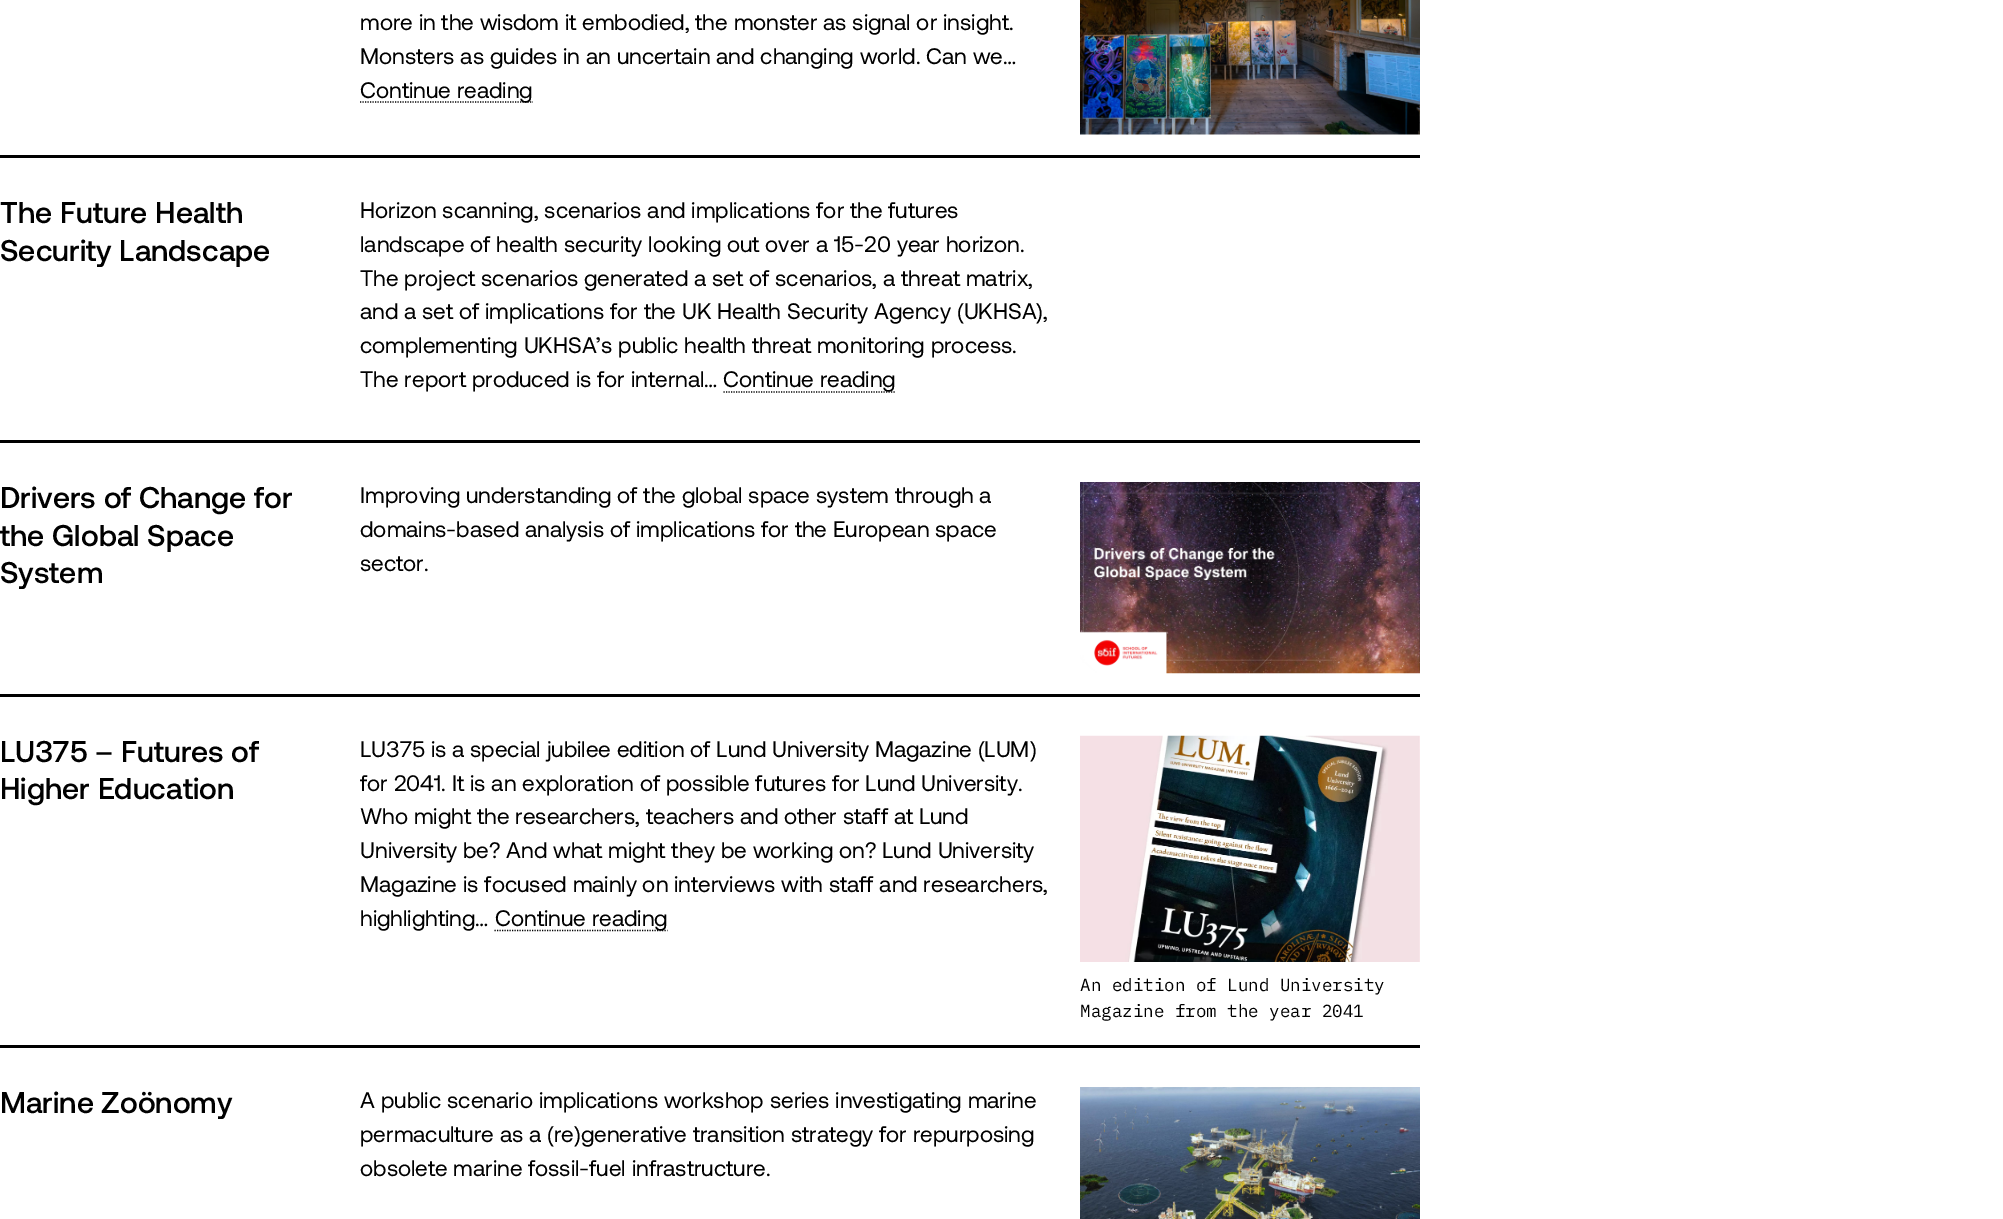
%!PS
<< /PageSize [2003 1219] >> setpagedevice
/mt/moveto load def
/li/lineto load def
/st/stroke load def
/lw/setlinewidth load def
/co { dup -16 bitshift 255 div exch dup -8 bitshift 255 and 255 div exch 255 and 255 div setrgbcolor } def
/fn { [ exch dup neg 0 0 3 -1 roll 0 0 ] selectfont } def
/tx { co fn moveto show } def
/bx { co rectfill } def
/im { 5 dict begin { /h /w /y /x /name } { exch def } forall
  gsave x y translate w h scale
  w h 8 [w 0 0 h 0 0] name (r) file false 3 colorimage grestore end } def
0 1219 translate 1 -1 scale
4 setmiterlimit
0 0 2003 1219 16#FFFFFF bx
0 155 1420 3 16#000000 bx
1.2 lw
[1.25 1.25] 0 setdash
360 102 mt 533 102 li st
(media/1.raw) 1080 0 340 135 im
0 440 1420 3 16#000000 bx
723.5 392 mt 896 392 li st
0 694 1420 3 16#000000 bx
(media/2.raw) 1080 482 340 192 im
0 1045 1420 3 16#000000 bx
494.5 930.5 mt 667.5 930.5 li st
(media/3.raw) 1080 735 340 227 im
(media/4.raw) 1080 1087 340 132 im
(more in the wisdom it embodied, the monster as signal or insight.) 360 30 /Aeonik-Regular 22.5 16#000000 tx
(Monsters as guides in an uncertain and changing world. Can we…) 360 64 /Aeonik-Regular 22.5 16#000000 tx
(Continue reading) 360 98 /Aeonik-Regular 22.5 16#000000 tx
(The Future Health) 0 223 /Aeonik-Medium 30 16#000000 tx
(Security Landscape) 0 261 /Aeonik-Medium 30 16#000000 tx
(Horizon scanning, scenarios and implications for the futures) 360 218 /Aeonik-Regular 22.5 16#000000 tx
(landscape of health security looking out over a 15-20 year horizon.) 360 252 /Aeonik-Regular 22.5 16#000000 tx
(The project scenarios generated a set of scenarios, a threat matrix,) 360 286 /Aeonik-Regular 22.5 16#000000 tx
(and a set of implications for the UK Health Security Agency \(UKHSA\),) 360 319 /Aeonik-Regular 22.5 16#000000 tx
(complementing UKHSA’s public health threat monitoring process.) 360 353 /Aeonik-Regular 22.5 16#000000 tx
(The report produced is for internal…) 360 387 /Aeonik-Regular 22.5 16#000000 tx
(Continue reading) 723 387 /Aeonik-Regular 22.5 16#000000 tx
(Drivers of Change for) 0 508 /Aeonik-Medium 30 16#000000 tx
(the Global Space) 0 546 /Aeonik-Medium 30 16#000000 tx
(System) 0 583 /Aeonik-Medium 30 16#000000 tx
(Improving understanding of the global space system through a) 360 503 /Aeonik-Regular 22.5 16#000000 tx
(domains-based analysis of implications for the European space) 360 537 /Aeonik-Regular 22.5 16#000000 tx
(sector.) 360 571 /Aeonik-Regular 22.5 16#000000 tx
(LU375 – Futures of) 0 762 /Aeonik-Medium 30 16#000000 tx
(Higher Education) 0 799 /Aeonik-Medium 30 16#000000 tx
(LU375 is a special jubilee edition of Lund University Magazine \(LUM\)) 360 757 /Aeonik-Regular 22.5 16#000000 tx
(for 2041. It is an exploration of possible futures for Lund University.) 360 791 /Aeonik-Regular 22.5 16#000000 tx
(Who might the researchers, teachers and other staff at Lund) 360 824 /Aeonik-Regular 22.5 16#000000 tx
(University be? And what might they be working on? Lund University) 360 858 /Aeonik-Regular 22.5 16#000000 tx
(Magazine is focused mainly on interviews with staff and researchers,) 360 892 /Aeonik-Regular 22.5 16#000000 tx
(highlighting…) 360 926 /Aeonik-Regular 22.5 16#000000 tx
(Continue reading) 495 926 /Aeonik-Regular 22.5 16#000000 tx
(An edition of Lund University) 1080 991 /IBMPlexMono-Regular 17.5 16#000000 tx
(Magazine from the year 2041) 1080 1017 /IBMPlexMono-Regular 17.5 16#000000 tx
(Marine Zoönomy) 0 1113 /Aeonik-Medium 30 16#000000 tx
(A public scenario implications workshop series investigating marine) 360 1108 /Aeonik-Regular 22.5 16#000000 tx
(permaculture as a \(re\)generative transition strategy for repurposing) 360 1142 /Aeonik-Regular 22.5 16#000000 tx
(obsolete marine fossil-fuel infrastructure.) 360 1176 /Aeonik-Regular 22.5 16#000000 tx
showpage
